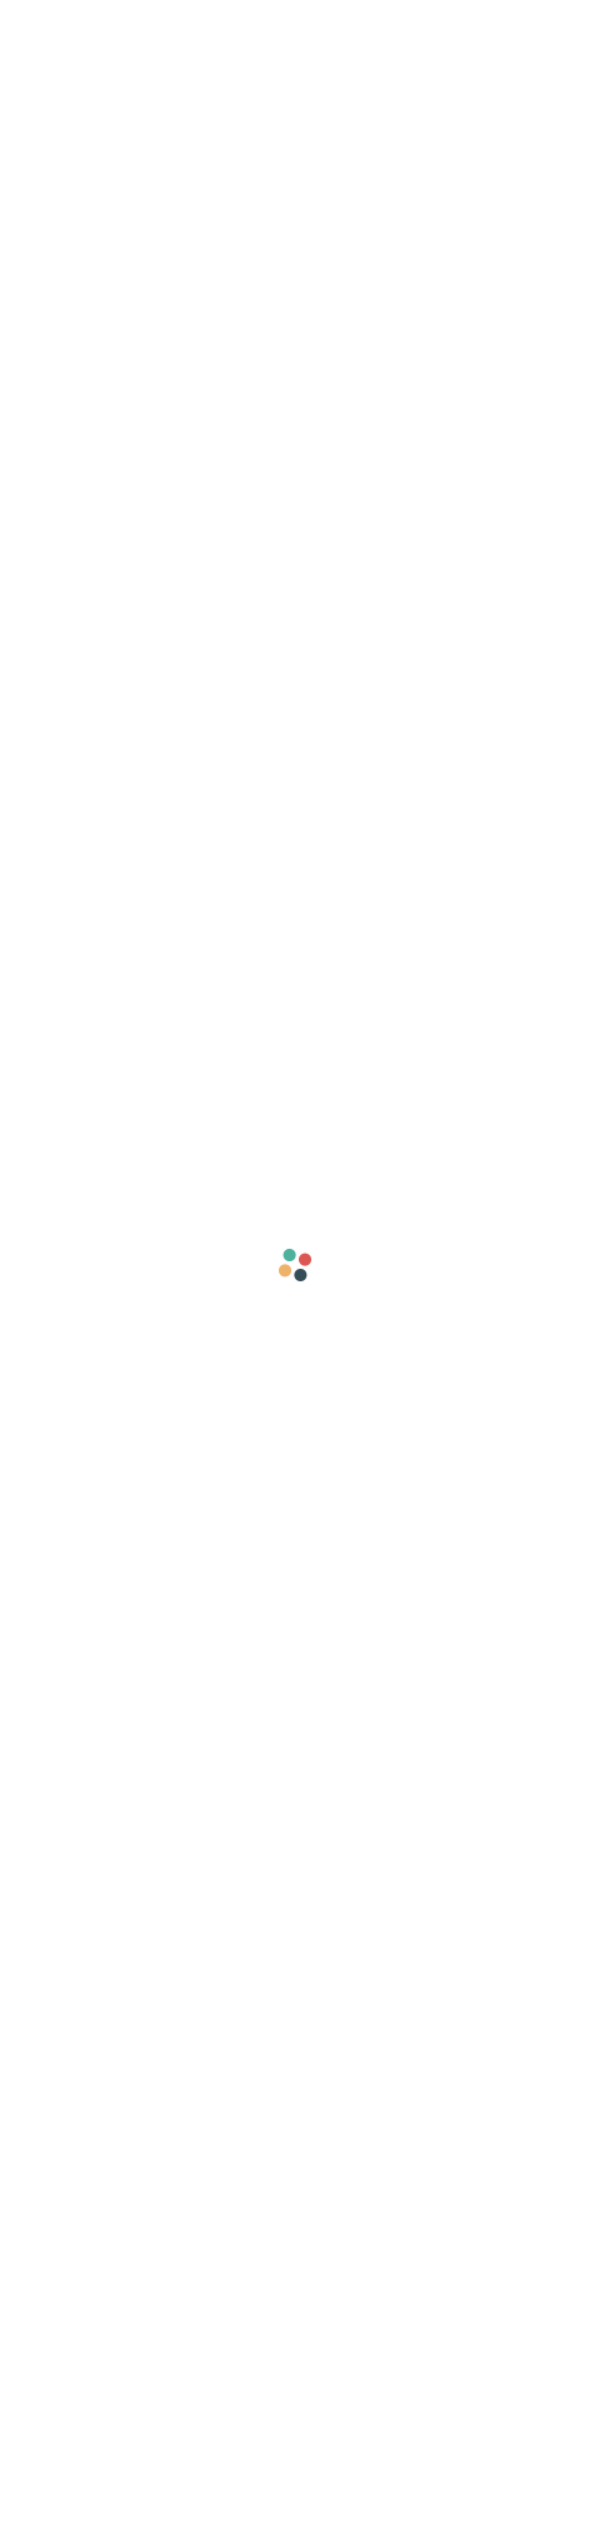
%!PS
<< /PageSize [589 2529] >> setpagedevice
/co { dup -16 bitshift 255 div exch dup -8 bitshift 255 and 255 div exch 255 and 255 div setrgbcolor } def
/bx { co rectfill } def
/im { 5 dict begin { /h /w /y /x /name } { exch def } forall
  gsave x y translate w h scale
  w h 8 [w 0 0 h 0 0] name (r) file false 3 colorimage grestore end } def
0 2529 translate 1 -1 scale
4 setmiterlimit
0 0 589 2529 16#FFFFFF bx
(media/1.raw) 278 1248 34 34 im
showpage
